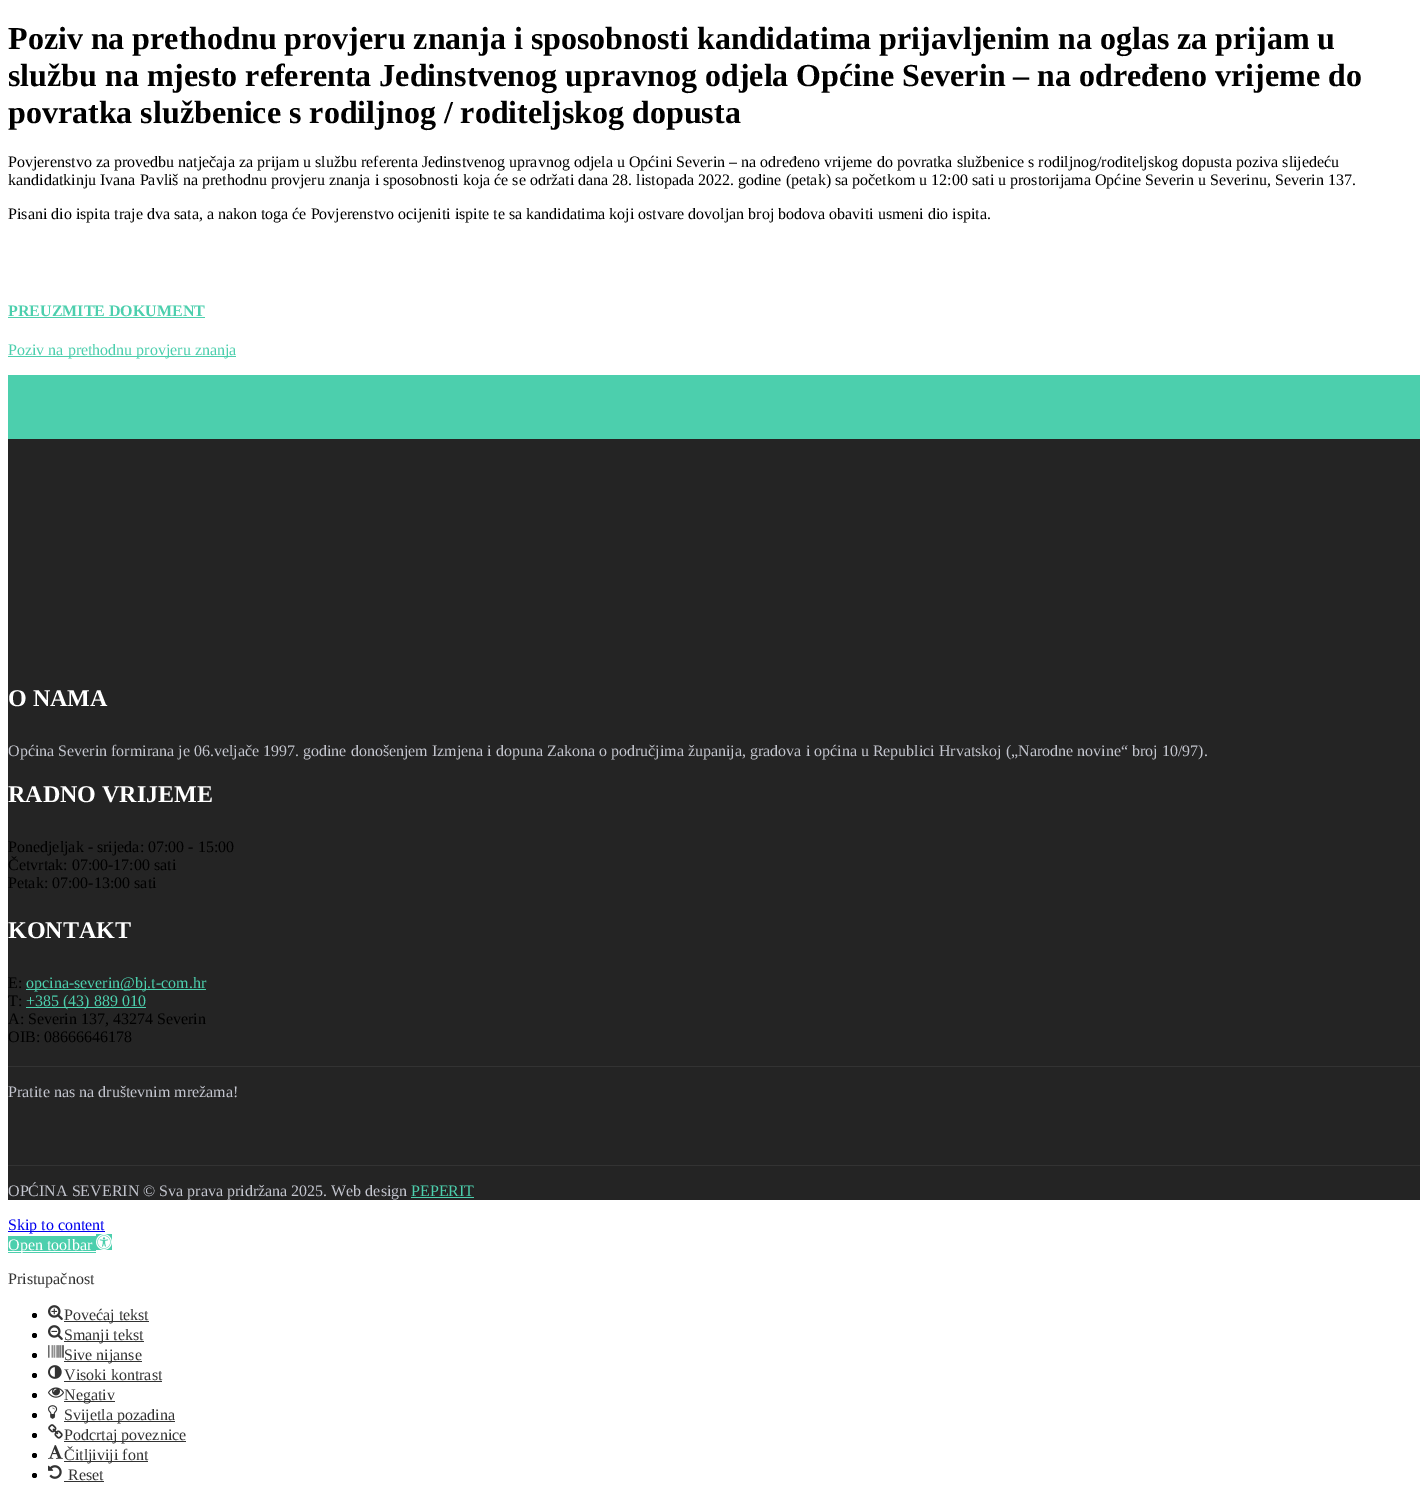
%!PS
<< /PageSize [1428 1500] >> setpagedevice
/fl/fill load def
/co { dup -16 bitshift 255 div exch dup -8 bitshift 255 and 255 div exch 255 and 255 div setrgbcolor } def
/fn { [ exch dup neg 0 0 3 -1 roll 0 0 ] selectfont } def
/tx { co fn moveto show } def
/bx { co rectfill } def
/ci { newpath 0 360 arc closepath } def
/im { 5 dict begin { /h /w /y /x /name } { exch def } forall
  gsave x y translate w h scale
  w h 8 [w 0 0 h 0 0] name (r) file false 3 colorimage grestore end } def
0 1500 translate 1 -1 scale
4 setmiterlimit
0 0 1428 1500 16#FFFFFF bx
8 317 197 1 16#4CCFAD bx
8 356 228 1 16#4CCFAD bx
8 375 1412 64 16#4CCFAD bx
8 439 1412 761 16#242424 bx
26 989 180 1 16#4CCFAD bx
26 1007 120 1 16#4CCFAD bx
8 1066 1412 1 16#333333 bx
8 1165 1412 1 16#333333 bx
411 1197 63 1 16#4CCFAD bx
8 1231 97 1 16#0000EE bx
8 1236 88 17 16#4CCFAD bx
96 1234 16 16 16#4CCFAD bx
8 1251 88 1 16#FFFFFF bx
(media/1.raw) 96 1234 16 16 im
16#000000 co
34.5 1315.5 2.5 ci fl
(media/2.raw) 48 1305 15 15 im
64 1321 85 1 16#333333 bx
16#000000 co
34.5 1335.5 2.5 ci fl
(media/3.raw) 48 1325 15 15 im
64 1341 80 1 16#333333 bx
16#000000 co
34.5 1355.5 2.5 ci fl
(media/4.raw) 48 1345 16 13 im
64 1361 78 1 16#333333 bx
16#000000 co
34.5 1375.5 2.5 ci fl
(media/5.raw) 48 1365 14 14 im
64 1381 98 1 16#333333 bx
16#000000 co
34.5 1395.5 2.5 ci fl
(media/6.raw) 48 1387 16 11 im
64 1401 51 1 16#333333 bx
16#000000 co
34.5 1415.5 2.5 ci fl
(media/7.raw) 48 1405 10 14 im
64 1421 111 1 16#333333 bx
16#000000 co
34.5 1435.5 2.5 ci fl
(media/8.raw) 48 1424 15 15 im
64 1441 122 1 16#333333 bx
16#000000 co
34.5 1455.5 2.5 ci fl
(media/9.raw) 48 1445 15 14 im
64 1461 84 1 16#333333 bx
16#000000 co
34.5 1475.5 2.5 ci fl
(media/10.raw) 48 1465 14 14 im
64 1481 40 1 16#333333 bx
(Poziv na prethodnu provjeru znanja i sposobnosti kandidatima prijavljenim na oglas za prijam u) 8 49 /LiberationSerif-Bold 32 16#000000 tx
(službu na mjesto referenta Jedinstvenog upravnog odjela Općine Severin – na određeno vrijeme do) 8 86 /LiberationSerif-Bold 32 16#000000 tx
(povratka službenice s rodiljnog / roditeljskog dopusta) 8 123 /LiberationSerif-Bold 32 16#000000 tx
(Povjerenstvo za provedbu natječaja za prijam u službu referenta Jedinstvenog upravnog odjela u Općini Severin – na određeno vrijeme do povratka službenice s rodiljnog/roditeljskog dopusta poziva slijedeću) 8 167 /LiberationSerif-Regular 16 16#000000 tx
(kandidatkinju Ivana Pavliš na prethodnu provjeru znanja i sposobnosti koja će se održati dana 28. listopada 2022. godine \(petak\) sa početkom u 12:00 sati u prostorijama Općine Severin u Severinu, Severin 137.) 8 185 /LiberationSerif-Regular 16 16#000000 tx
(Pisani dio ispita traje dva sata, a nakon toga će Povjerenstvo ocijeniti ispite te sa kandidatima koji ostvare dovoljan broj bodova obaviti usmeni dio ispita.) 8 219 /LiberationSerif-Regular 16 16#000000 tx
(PREUZMITE DOKUMENT) 8 316 /LiberationSerif-Bold 16 16#4CCFAD tx
(Poziv na prethodnu provjeru znanja) 8 355 /LiberationSerif-Regular 16 16#4CCFAD tx
(O NAMA) 8 706 /LiberationSerif-Bold 24 16#FFFFFF tx
(Općina Severin formirana je 06.veljače 1997. godine donošenjem Izmjena i dopuna Zakona o područjima županija, gradova i općina u Republici Hrvatskoj \(„Narodne novine“ broj 10/97\).) 8 756 /LiberationSerif-Regular 16 16#C3C5CE tx
(RADNO VRIJEME) 8 802 /LiberationSerif-Bold 24 16#FFFFFF tx
(Ponedjeljak - srijeda: 07:00 - 15:00) 8 852 /LiberationSerif-Regular 16 16#000000 tx
(Četvrtak: 07:00-17:00 sati) 8 870 /LiberationSerif-Regular 16 16#000000 tx
(Petak: 07:00-13:00 sati) 8 888 /LiberationSerif-Regular 16 16#000000 tx
(KONTAKT) 8 938 /LiberationSerif-Bold 24 16#FFFFFF tx
(E:) 8 988 /LiberationSerif-Regular 16 16#000000 tx
(opcina-severin@bj.t-com.hr) 26 988 /LiberationSerif-Regular 16 16#4CCFAD tx
(T:) 8 1006 /LiberationSerif-Regular 16 16#000000 tx
(+385 \(43\) 889 010) 26 1006 /LiberationSerif-Regular 16 16#4CCFAD tx
(A: Severin 137, 43274 Severin) 8 1024 /LiberationSerif-Regular 16 16#000000 tx
(OIB: 08666646178) 8 1042 /LiberationSerif-Regular 16 16#000000 tx
(Pratite nas na društevnim mrežama!) 8 1097 /LiberationSerif-Regular 16 16#C3C5CE tx
(OPĆINA SEVERIN © Sva prava pridržana 2025. Web design) 8 1196 /LiberationSerif-Regular 16 16#C3C5CE tx
(PEPERIT) 411 1196 /LiberationSerif-Regular 16 16#4CCFAD tx
(Skip to content) 8 1230 /LiberationSerif-Regular 16 16#0000EE tx
(Open toolbar) 8 1250 /LiberationSerif-Regular 16 16#FFFFFF tx
(Pristupačnost) 8 1284 /LiberationSerif-Regular 16 16#333333 tx
(Povećaj tekst) 64 1320 /LiberationSerif-Regular 16 16#333333 tx
(Smanji tekst) 64 1340 /LiberationSerif-Regular 16 16#333333 tx
(Sive nijanse) 64 1360 /LiberationSerif-Regular 16 16#333333 tx
(Visoki kontrast) 64 1380 /LiberationSerif-Regular 16 16#333333 tx
(Negativ) 64 1400 /LiberationSerif-Regular 16 16#333333 tx
(Svijetla pozadina) 64 1420 /LiberationSerif-Regular 16 16#333333 tx
(Podcrtaj poveznice) 64 1440 /LiberationSerif-Regular 16 16#333333 tx
(Čitljiviji font) 64 1460 /LiberationSerif-Regular 16 16#333333 tx
(Reset) 68 1480 /LiberationSerif-Regular 16 16#333333 tx
showpage
